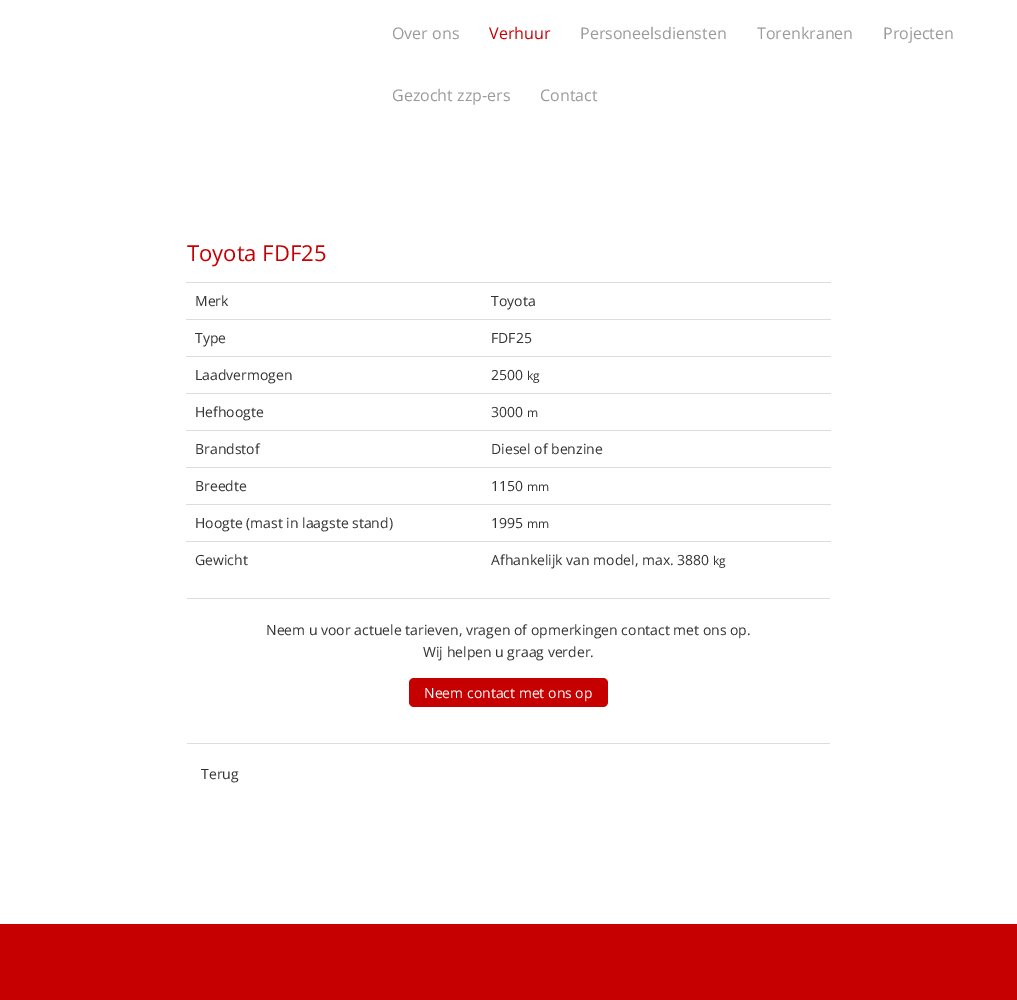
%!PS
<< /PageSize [1017 1000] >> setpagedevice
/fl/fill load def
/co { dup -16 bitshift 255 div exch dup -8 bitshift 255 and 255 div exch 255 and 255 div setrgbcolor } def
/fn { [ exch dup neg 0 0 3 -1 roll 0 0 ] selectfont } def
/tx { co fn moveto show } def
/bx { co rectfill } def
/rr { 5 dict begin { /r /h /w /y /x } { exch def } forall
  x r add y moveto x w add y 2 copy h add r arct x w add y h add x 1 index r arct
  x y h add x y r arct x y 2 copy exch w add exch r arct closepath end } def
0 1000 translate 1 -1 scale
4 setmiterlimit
0 0 1017 1000 16#FFFFFF bx
186 282 645 1 16#DDDDDD bx
186 319 645 1 16#DDDDDD bx
186 356 645 1 16#DDDDDD bx
186 393 645 1 16#DDDDDD bx
186 430 645 1 16#DDDDDD bx
186 467 645 1 16#DDDDDD bx
186 504 645 1 16#DDDDDD bx
186 541 645 1 16#DDDDDD bx
187 598 643 1 16#DDDDDD bx
16#C60001 co
409 678 199 29 5 rr fl
187 743 643 1 16#DDDDDD bx
0 924 1017 76 16#C60001 bx
(Over ons) 392 39 /OpenSans-Regular 16 16#9A9A9A tx
(Verhuur) 489 39 /OpenSans-Regular 16 16#C60001 tx
(Personeelsdiensten) 580 39 /OpenSans-Regular 16 16#9A9A9A tx
(Torenkranen) 757 39 /OpenSans-Regular 16 16#9A9A9A tx
(Projecten) 883 39 /OpenSans-Regular 16 16#9A9A9A tx
(Gezocht zzp-ers) 392 101 /OpenSans-Regular 16 16#9A9A9A tx
(Contact) 540 101 /OpenSans-Regular 16 16#9A9A9A tx
(Toyota FDF25) 187 261 /OpenSans-Regular 22 16#C60001 tx
(Merk) 195 306 /OpenSans-Regular 14 16#333333 tx
(Toyota) 491 306 /OpenSans-Regular 14 16#333333 tx
(Type) 195 343 /OpenSans-Regular 14 16#333333 tx
(FDF25) 491 343 /OpenSans-Regular 14 16#333333 tx
(Laadvermogen) 195 380 /OpenSans-Regular 14 16#333333 tx
(2500) 491 380 /OpenSans-Regular 14 16#333333 tx
(kg) 527 380 /OpenSans-Regular 12 16#333333 tx
(Hefhoogte) 195 417 /OpenSans-Regular 14 16#333333 tx
(3000) 491 417 /OpenSans-Regular 14 16#333333 tx
(m) 527 417 /OpenSans-Regular 12 16#333333 tx
(Brandstof) 195 454 /OpenSans-Regular 14 16#333333 tx
(Diesel of benzine) 491 454 /OpenSans-Regular 14 16#333333 tx
(Breedte) 195 491 /OpenSans-Regular 14 16#333333 tx
(1150) 491 491 /OpenSans-Regular 14 16#333333 tx
(mm) 527 491 /OpenSans-Regular 12 16#333333 tx
(Hoogte \(mast in laagste stand\)) 195 528 /OpenSans-Regular 14 16#333333 tx
(1995) 491 528 /OpenSans-Regular 14 16#333333 tx
(mm) 527 528 /OpenSans-Regular 12 16#333333 tx
(Gewicht) 195 565 /OpenSans-Regular 14 16#333333 tx
(Afhankelijk van model, max. 3880) 491 565 /OpenSans-Regular 14 16#333333 tx
(kg) 713 565 /OpenSans-Regular 12 16#333333 tx
(Neem u voor actuele tarieven, vragen of opmerkingen contact met ons op.) 266 635 /OpenSans-Regular 14 16#333333 tx
(Wij helpen u graag verder.) 423 657 /OpenSans-Regular 14 16#333333 tx
(Neem contact met ons op) 424 698 /OpenSans-Regular 14 16#FFFFFF tx
(Terug) 201 779 /OpenSans-Regular 14 16#333333 tx
showpage
